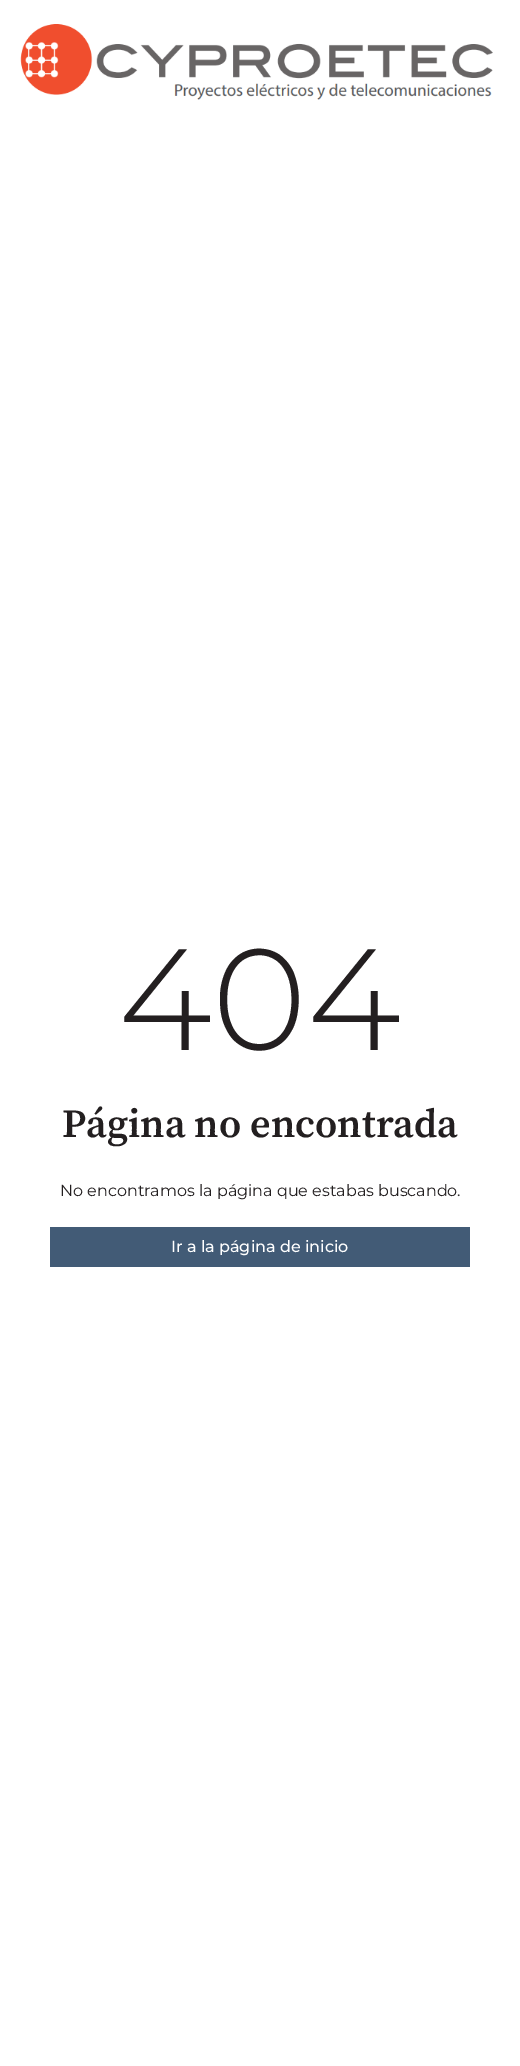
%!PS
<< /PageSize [520 2066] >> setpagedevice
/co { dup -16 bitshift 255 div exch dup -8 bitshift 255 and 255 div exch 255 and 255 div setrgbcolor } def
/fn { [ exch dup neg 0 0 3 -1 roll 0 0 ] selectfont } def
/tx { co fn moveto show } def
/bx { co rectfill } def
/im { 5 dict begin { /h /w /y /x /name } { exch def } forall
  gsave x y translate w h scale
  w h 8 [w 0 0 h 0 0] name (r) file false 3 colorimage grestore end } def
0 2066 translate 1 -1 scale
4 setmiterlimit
0 0 520 2066 16#FFFFFF bx
(media/1.raw) 20 24 473 76 im
50 1227 420 40 16#425B76 bx
(404) 118 1050 /Montserrat-Light 144 16#231F20 tx
(Página no encontrada) 62 1137 /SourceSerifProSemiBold-SemiBold 40 16#231F20 tx
(No encontramos la página que estabas buscando.) 60 1196 /Montserrat-Regular 16 16#231F20 tx
(Ir a la página de inicio) 171 1252 /Montserrat-Medium 16 16#FFFFFF tx
showpage
